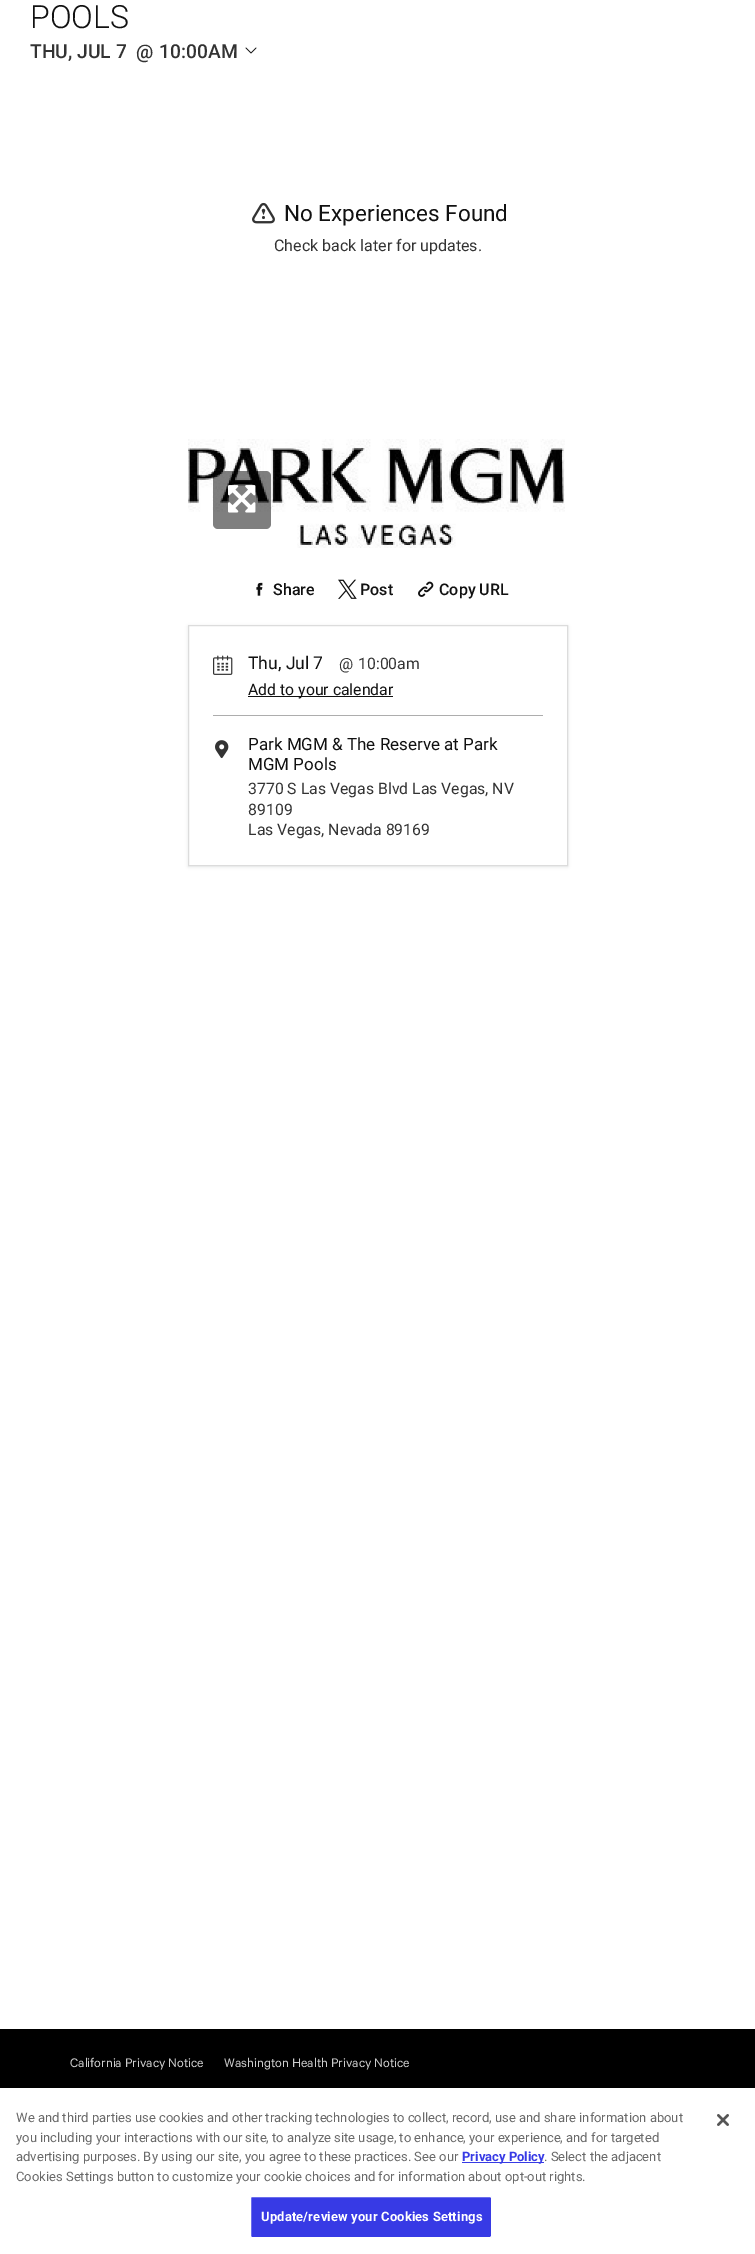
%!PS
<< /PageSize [755 2254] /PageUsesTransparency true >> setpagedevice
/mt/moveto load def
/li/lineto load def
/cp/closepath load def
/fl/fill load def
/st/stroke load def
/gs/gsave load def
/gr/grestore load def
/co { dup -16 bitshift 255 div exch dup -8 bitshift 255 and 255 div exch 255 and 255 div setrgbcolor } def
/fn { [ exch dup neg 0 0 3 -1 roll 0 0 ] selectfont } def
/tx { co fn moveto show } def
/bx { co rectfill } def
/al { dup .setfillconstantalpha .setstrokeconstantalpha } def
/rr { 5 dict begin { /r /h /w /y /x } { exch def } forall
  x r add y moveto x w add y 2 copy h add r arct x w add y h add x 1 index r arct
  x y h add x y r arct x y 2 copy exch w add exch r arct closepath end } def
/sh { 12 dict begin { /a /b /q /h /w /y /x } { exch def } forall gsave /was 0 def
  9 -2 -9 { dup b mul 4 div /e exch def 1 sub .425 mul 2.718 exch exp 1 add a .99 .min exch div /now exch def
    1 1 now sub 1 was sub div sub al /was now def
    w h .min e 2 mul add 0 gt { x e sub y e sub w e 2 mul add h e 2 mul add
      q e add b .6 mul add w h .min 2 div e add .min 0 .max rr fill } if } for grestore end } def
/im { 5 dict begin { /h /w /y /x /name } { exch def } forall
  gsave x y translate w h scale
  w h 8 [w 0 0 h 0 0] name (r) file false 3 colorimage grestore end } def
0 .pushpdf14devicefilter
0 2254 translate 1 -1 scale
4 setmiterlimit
0 0 755 2254 16#FFFFFF bx
(media/1.raw) 245 47 12 7 im
(media/2.raw) 252 202 23 22 im
(media/3.raw) 188 439 380 115 im
0.5 al
16#000000 co
213 471 58 58 5 rr fl
1 al
(media/4.raw) 228 485 28 28 im
(media/5.raw) 256 582 7 14 im
(media/6.raw) 338 579 19 20 im
(media/7.raw) 418 581 16 16 im
gs
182 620 mt 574 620 li 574 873 li 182 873 li cp 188 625 mt 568 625 li 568 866 li 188 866 li cp eoclip newpath
16#3F4C60 co
188 626 380 241 0 1.5 .12 sh
gr
16#DCDCDC co
188.5 625.5 379 240 rectstroke
(media/8.raw) 213 655 20 20 im
248 696 145 1 16#111111 bx
213 715 330 1 16#ADADAD bx
(media/9.raw) 215 740 14 19 im
0 2029 755 59 16#000000 bx
0 2088 755 166 0 9 .2 sh
0 2088 755 166 16#FFFFFF bx
462 2162 82 1 16#373AE5 bx
250.5 2196.5 241 41 1.5 rr gs fl gr
16#FFFFFF co
st
(media/10.raw) 717 2114 12 12 im
(POOLS) 30 28 /Roboto-Light 32 16#111111 tx
(THU, JUL 7) 30 58 /Roboto-Medium 19.25 16#333333 tx
(@) 136 58 /Roboto-Medium 19.25 16#333333 tx
(10:00AM) 159 58 /Roboto-Medium 19.25 16#333333 tx
(No Experiences Found) 284 221 /Roboto-Regular 22.5 16#111111 tx
(Check back later for updates.) 274 251 /Roboto-Regular 16 16#333333 tx
(Share) 273 595 /Roboto-Medium 16 16#111111 tx
(Post) 360 595 /Roboto-Medium 16 16#111111 tx
(Copy URL) 439 595 /Roboto-Medium 16 16#111111 tx
(Thu, Jul 7) 248 669 /Roboto-Regular 17.5 16#111111 tx
(@) 339 669 /Roboto-Regular 15.8 16#333333 tx
(10:00am) 358 669 /Roboto-Regular 15.8 16#333333 tx
(Add to your calendar) 248 695 /Roboto-Regular 15.8 16#111111 tx
(Park MGM & The Reserve at Park) 248 750 /Roboto-Regular 17 16#111111 tx
(MGM Pools) 248 770 /Roboto-Regular 17 16#111111 tx
(3770 S Las Vegas Blvd Las Vegas, NV) 248 794 /Roboto-Regular 15.8 16#333333 tx
(89109) 248 815 /Roboto-Regular 15.8 16#333333 tx
(Las Vegas, Nevada 89169) 248 835 /Roboto-Regular 15.8 16#333333 tx
(California Privacy Notice) 70 2067 /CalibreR-Regular 12 16#CCCCCC tx
(Washington Health Privacy Notice) 224 2067 /CalibreR-Regular 12 16#CCCCCC tx
(We and third parties use cookies and other tracking technologies to collect, record, use and share information about) 16 2122 /Roboto-Regular 13 16#696969 tx
(you including your interactions with our site, to analyze site usage, to enhance, your experience, and for targeted) 16 2142 /Roboto-Regular 13 16#696969 tx
(advertising purposes. By using our site, you agree to these practices. See our) 16 2161 /Roboto-Regular 13 16#696969 tx
(Privacy Policy) 462 2161 /Roboto-Bold 13 16#373AE5 tx
(. Select the adjacent) 544 2161 /Roboto-Regular 13 16#696969 tx
(Cookies Settings button to customize your cookie choices and for information about opt-out rights.) 16 2181 /Roboto-Regular 13 16#696969 tx
/Roboto-Bold 13 fn
16#FFFFFF co
261 2221 mt .15 0 (Update/review your Cookies Settings) ashow
.poppdf14devicefilter showpage
